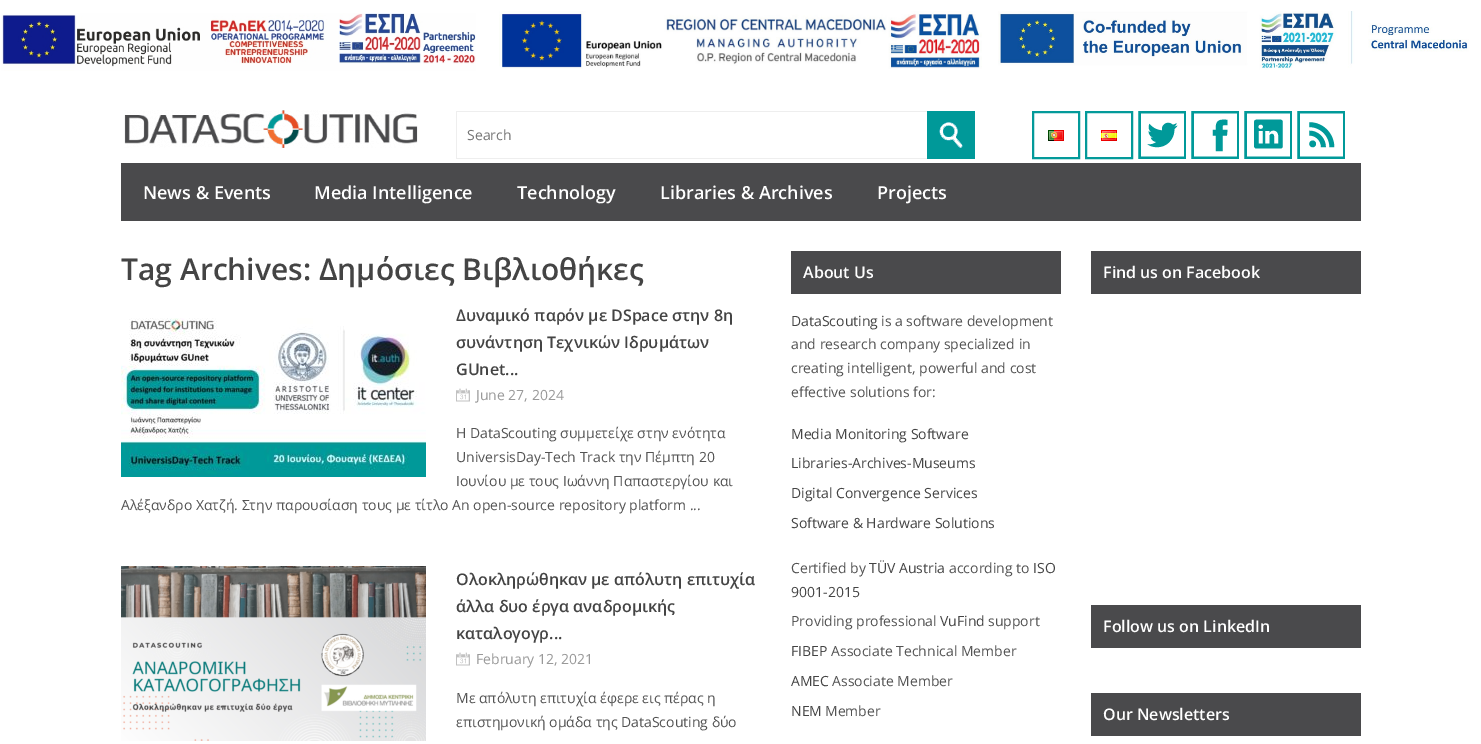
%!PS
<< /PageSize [1481 744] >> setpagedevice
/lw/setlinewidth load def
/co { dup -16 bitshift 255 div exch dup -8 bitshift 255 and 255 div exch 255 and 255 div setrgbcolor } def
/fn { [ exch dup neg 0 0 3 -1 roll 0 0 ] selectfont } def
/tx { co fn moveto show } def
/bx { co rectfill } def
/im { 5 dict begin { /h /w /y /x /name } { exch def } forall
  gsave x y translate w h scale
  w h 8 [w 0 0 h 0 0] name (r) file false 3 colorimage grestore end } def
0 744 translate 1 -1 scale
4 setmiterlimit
0 0 1481 744 16#FFFFFF bx
(media/1.raw) 1 13 475 58 im
(media/2.raw) 499 11 483 58 im
(media/3.raw) 998 11 471 59 im
(media/4.raw) 124 110 294 38 im
456 111 471 1 16#EEEEEE bx
456 158 471 1 16#EEEEEE bx
456 111 1 48 16#EEEEEE bx
(media/5.raw) 927 111 48 48 im
16#039A9A co
2 lw
1033 112 46 46 rectstroke
(media/6.raw) 1048 130 16 11 im
1086 112 46 46 rectstroke
(media/7.raw) 1101 130 16 11 im
(media/8.raw) 1138 111 48 48 im
(media/9.raw) 1191 111 48 48 im
(media/10.raw) 1244 111 48 48 im
(media/11.raw) 1297 111 48 48 im
121 163 1240 58 16#4A4A4C bx
(media/12.raw) 456 388 14 14 im
(media/13.raw) 121 318 305 159 im
(media/14.raw) 121 566 305 175 im
(media/12.raw) 456 652 14 14 im
791 251 270 43 16#4A4A4C bx
1091 251 270 43 16#4A4A4C bx
1091 605 270 43 16#4A4A4C bx
1091 693 270 43 16#4A4A4C bx
(Search) 467 140 /OpenSans-Regular 14 16#757575 tx
(News & Events) 143 199 /OpenSans-SemiBold 18 16#FFFFFF tx
(Media Intelligence) 314 199 /OpenSans-SemiBold 18 16#FFFFFF tx
(Technology) 517 199 /OpenSans-SemiBold 18 16#FFFFFF tx
(Libraries & Archives) 660 199 /OpenSans-SemiBold 18 16#FFFFFF tx
(Projects) 877 199 /OpenSans-SemiBold 18 16#FFFFFF tx
(Tag Archives: Δημόσιες Βιβλιοθήκες) 121 280 /OpenSans-SemiBold 30 16#444444 tx
(Δυναμικό παρόν με DSpace στην 8η) 456 321 /OpenSans-SemiBold 16 16#444444 tx
(συνάντηση Τεχνικών Ιδρυμάτων) 456 348 /OpenSans-SemiBold 16 16#444444 tx
(GUnet...) 456 375 /OpenSans-SemiBold 16 16#444444 tx
(June 27, 2024) 476 400 /OpenSans-Regular 14 16#999999 tx
(H DataScouting συμμετείχε στην ενότητα) 456 438 /OpenSans-Regular 14 16#535353 tx
(UniversisDay-Tech Track την Πέμπτη 20) 456 462 /OpenSans-Regular 14 16#535353 tx
(Ιουνίου με τους Ιωάννη Παπαστεργίου και) 456 486 /OpenSans-Regular 14 16#535353 tx
(Αλέξανδρο Χατζή. Στην παρουσίαση τους με τίτλο An open-source repository platform ...) 121 510 /OpenSans-Regular 14 16#535353 tx
(Ολοκληρώθηκαν με απόλυτη επιτυχία) 456 585 /OpenSans-SemiBold 16 16#444444 tx
(άλλα δυο έργα αναδρομικής) 456 612 /OpenSans-SemiBold 16 16#444444 tx
(καταλογογρ...) 456 639 /OpenSans-SemiBold 16 16#444444 tx
(February 12, 2021) 476 664 /OpenSans-Regular 14 16#999999 tx
(Με απόλυτη επιτυχία έφερε εις πέρας η) 456 703 /OpenSans-Regular 14 16#535353 tx
(επιστημονική ομάδα της DataScouting δύο) 456 727 /OpenSans-Regular 14 16#535353 tx
(About Us) 803 278 /OpenSans-SemiBold 16 16#FFFFFF tx
(DataScouting) 791 326 /OpenSans-Regular 14 16#444444 tx
(is a software development) 881 326 /OpenSans-Regular 14 16#535353 tx
(and research company specialized in) 791 349 /OpenSans-Regular 14 16#535353 tx
(creating intelligent, powerful and cost) 791 373 /OpenSans-Regular 14 16#535353 tx
(effective solutions for:) 791 397 /OpenSans-Regular 14 16#535353 tx
(Media Monitoring Software) 791 439 /OpenSans-Regular 14 16#444444 tx
(Libraries-Archives-Museums) 791 468 /OpenSans-Regular 14 16#444444 tx
(Digital Convergence Services) 791 498 /OpenSans-Regular 14 16#444444 tx
(Software & Hardware Solutions) 791 528 /OpenSans-Regular 14 16#444444 tx
(Certified by) 791 573 /OpenSans-Regular 14 16#535353 tx
(TÜV Austria) 869 573 /OpenSans-Regular 14 16#444444 tx
(according to) 949 573 /OpenSans-Regular 14 16#535353 tx
(ISO) 1033 573 /OpenSans-Regular 14 16#444444 tx
(9001-2015) 791 597 /OpenSans-Regular 14 16#444444 tx
(Providing professional) 791 626 /OpenSans-Regular 14 16#535353 tx
(VuFind) 940 626 /OpenSans-Regular 14 16#444444 tx
(support) 988 626 /OpenSans-Regular 14 16#535353 tx
(FIBEP) 791 656 /OpenSans-Regular 14 16#444444 tx
(Associate Technical Member) 831 656 /OpenSans-Regular 14 16#535353 tx
(AMEC) 791 686 /OpenSans-Regular 14 16#444444 tx
(Associate Member) 832 686 /OpenSans-Regular 14 16#535353 tx
(NEM) 791 716 /OpenSans-Regular 14 16#444444 tx
(Member) 825 716 /OpenSans-Regular 14 16#535353 tx
(Find us on Facebook) 1103 278 /OpenSans-SemiBold 16 16#FFFFFF tx
(Follow us on LinkedIn) 1103 632 /OpenSans-SemiBold 16 16#FFFFFF tx
(Our Newsletters) 1103 720 /OpenSans-SemiBold 16 16#FFFFFF tx
showpage
